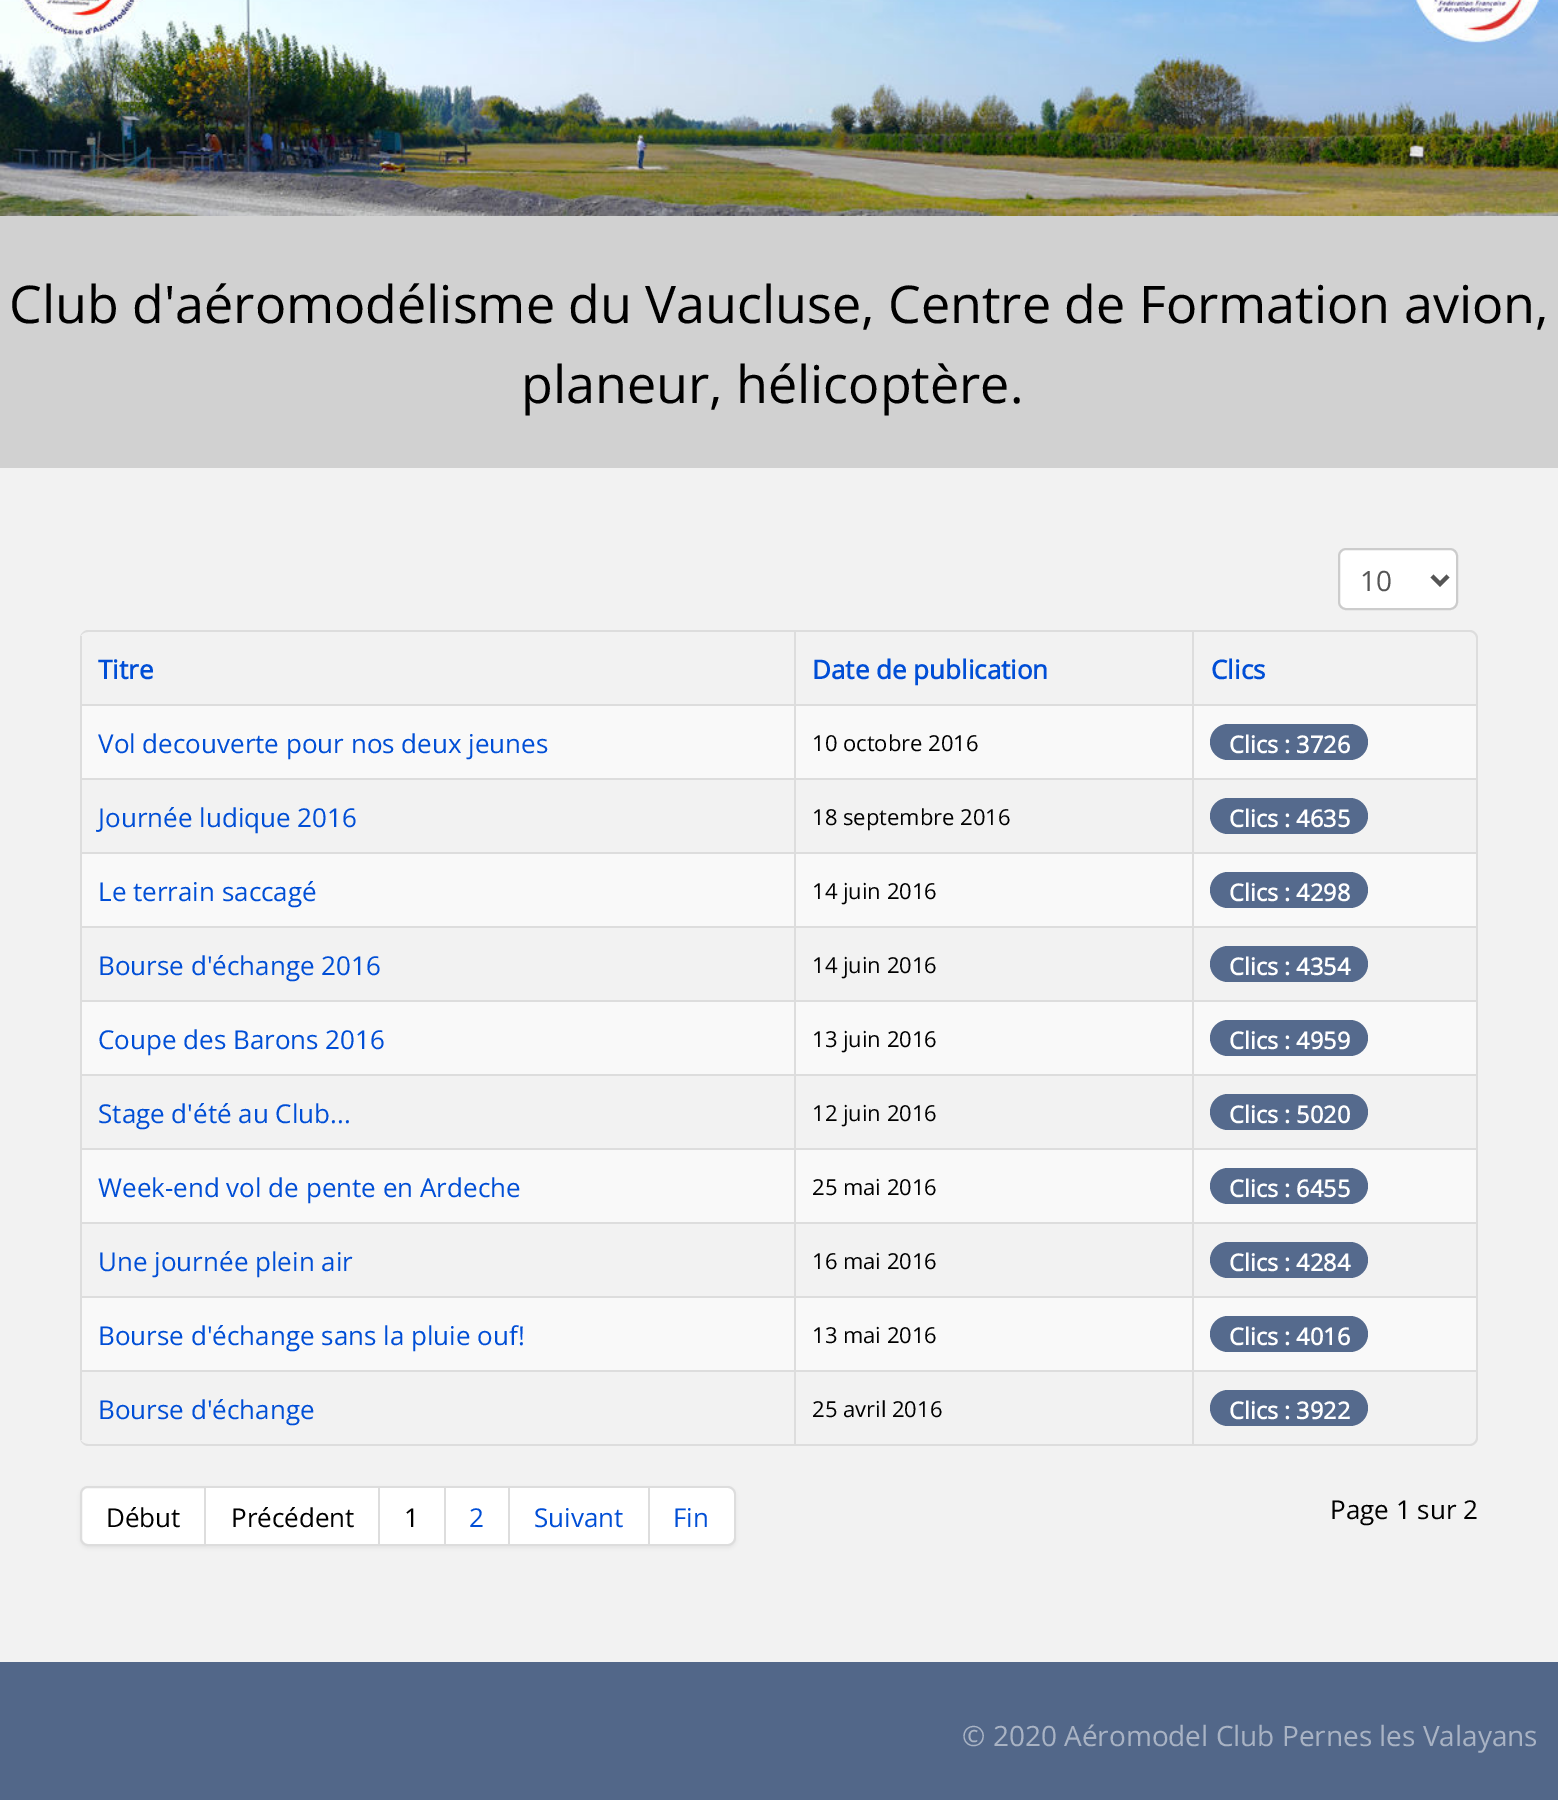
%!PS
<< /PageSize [1558 1800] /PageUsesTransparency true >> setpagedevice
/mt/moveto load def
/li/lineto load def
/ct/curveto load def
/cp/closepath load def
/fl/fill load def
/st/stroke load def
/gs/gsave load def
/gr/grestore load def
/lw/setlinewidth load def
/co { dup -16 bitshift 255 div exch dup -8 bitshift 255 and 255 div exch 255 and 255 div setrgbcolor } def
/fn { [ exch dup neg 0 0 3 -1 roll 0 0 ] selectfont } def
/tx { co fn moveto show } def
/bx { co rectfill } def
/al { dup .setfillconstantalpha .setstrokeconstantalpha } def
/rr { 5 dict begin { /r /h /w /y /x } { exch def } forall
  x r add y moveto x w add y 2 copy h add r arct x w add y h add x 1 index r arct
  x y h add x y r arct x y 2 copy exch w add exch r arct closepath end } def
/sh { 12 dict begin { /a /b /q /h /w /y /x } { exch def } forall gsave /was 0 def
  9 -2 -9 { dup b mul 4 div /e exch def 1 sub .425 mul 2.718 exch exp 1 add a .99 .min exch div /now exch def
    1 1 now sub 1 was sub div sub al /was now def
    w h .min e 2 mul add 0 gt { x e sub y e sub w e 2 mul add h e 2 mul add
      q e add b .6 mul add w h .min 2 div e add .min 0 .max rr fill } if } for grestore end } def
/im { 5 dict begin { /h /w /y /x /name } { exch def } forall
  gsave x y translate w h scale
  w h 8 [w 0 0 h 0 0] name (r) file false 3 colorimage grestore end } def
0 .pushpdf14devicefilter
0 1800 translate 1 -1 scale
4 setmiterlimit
0 0 1558 1800 16#D1D1D1 bx
(media/1.raw) 0 0 1558 216 im
0 468 1558 1194 16#F2F2F2 bx
16#FFFFFF co
1339 549 118 60 7 rr gs fl gr
16#CCCCCC co
2 lw
st
16#555555 co
4 lw
1432 576 mt 1440 584 li 1448 576 li st
16#DDDDDD co
88 630 mt 1470 630 li 1474 630 1478 634 1478 638 ct 1478 1438 li 1478 1442 1474 1446 1470 1446 ct 88 1446 li 84 1446 80 1442 80 1438 ct 80 638 li 80 634 84 630 88 630 ct cp 88 632 mt 1470 632 li 1473 632 1476 635 1476 638 ct 1476 1438 li 1476 1441 1473 1444 1470 1444 ct 88 1444 li 84 1444 80 1441 80 1438 ct 80 638 li 80 635 84 632 88 632 ct cp eofill
80 636 2 68 16#DDDDDD bx
794 632 2 72 16#DDDDDD bx
1192 632 2 72 16#DDDDDD bx
82 706 712 72 16#F9F9F9 bx
80 704 1396 2 16#DDDDDD bx
80 704 2 74 16#DDDDDD bx
796 706 396 72 16#F9F9F9 bx
794 704 2 74 16#DDDDDD bx
1194 706 282 72 16#F9F9F9 bx
1192 704 2 74 16#DDDDDD bx
16#556A8D co
1210 724 158 36 18 rr fl
80 778 1396 2 16#DDDDDD bx
80 778 2 74 16#DDDDDD bx
794 778 2 74 16#DDDDDD bx
1192 778 2 74 16#DDDDDD bx
16#556A8D co
1210 798 158 36 18 rr fl
82 854 712 72 16#F9F9F9 bx
80 852 1396 2 16#DDDDDD bx
80 852 2 74 16#DDDDDD bx
796 854 396 72 16#F9F9F9 bx
794 852 2 74 16#DDDDDD bx
1194 854 282 72 16#F9F9F9 bx
1192 852 2 74 16#DDDDDD bx
16#556A8D co
1210 872 158 36 18 rr fl
80 926 1396 2 16#DDDDDD bx
80 926 2 74 16#DDDDDD bx
794 926 2 74 16#DDDDDD bx
1192 926 2 74 16#DDDDDD bx
16#556A8D co
1210 946 158 36 18 rr fl
82 1002 712 72 16#F9F9F9 bx
80 1000 1396 2 16#DDDDDD bx
80 1000 2 74 16#DDDDDD bx
796 1002 396 72 16#F9F9F9 bx
794 1000 2 74 16#DDDDDD bx
1194 1002 282 72 16#F9F9F9 bx
1192 1000 2 74 16#DDDDDD bx
16#556A8D co
1210 1020 158 36 18 rr fl
80 1074 1396 2 16#DDDDDD bx
80 1074 2 74 16#DDDDDD bx
794 1074 2 74 16#DDDDDD bx
1192 1074 2 74 16#DDDDDD bx
16#556A8D co
1210 1094 158 36 18 rr fl
82 1150 712 72 16#F9F9F9 bx
80 1148 1396 2 16#DDDDDD bx
80 1148 2 74 16#DDDDDD bx
796 1150 396 72 16#F9F9F9 bx
794 1148 2 74 16#DDDDDD bx
1194 1150 282 72 16#F9F9F9 bx
1192 1148 2 74 16#DDDDDD bx
16#556A8D co
1210 1168 158 36 18 rr fl
80 1222 1396 2 16#DDDDDD bx
80 1222 2 74 16#DDDDDD bx
794 1222 2 74 16#DDDDDD bx
1192 1222 2 74 16#DDDDDD bx
16#556A8D co
1210 1242 158 36 18 rr fl
82 1298 712 72 16#F9F9F9 bx
80 1296 1396 2 16#DDDDDD bx
80 1296 2 74 16#DDDDDD bx
796 1298 396 72 16#F9F9F9 bx
794 1296 2 74 16#DDDDDD bx
1194 1298 282 72 16#F9F9F9 bx
1192 1296 2 74 16#DDDDDD bx
16#556A8D co
1210 1316 158 36 18 rr fl
80 1370 1396 2 16#DDDDDD bx
80 1370 2 70 16#DDDDDD bx
794 1370 2 74 16#DDDDDD bx
1192 1370 2 74 16#DDDDDD bx
16#556A8D co
1210 1390 158 36 18 rr fl
16#000000 co
80 1488 656 60 8 2 .05 sh
16#FFFFFF co
88 1487 mt 205 1487 li 205 1545 li 88 1545 li 84 1545 81 1542 81 1538 ct 81 1494 li 81 1490 84 1487 88 1487 ct cp gs fl gr
16#DDDDDD co
2 lw
st
206 1488 172 56 16#FFFFFF bx
206 1486 444 2 16#DDDDDD bx
378 1486 2 60 16#DDDDDD bx
206 1544 174 2 16#DDDDDD bx
380 1488 64 56 16#FFFFFF bx
444 1486 2 60 16#DDDDDD bx
380 1544 66 2 16#DDDDDD bx
446 1488 62 56 16#FFFFFF bx
508 1486 2 60 16#DDDDDD bx
446 1544 64 2 16#DDDDDD bx
510 1488 138 56 16#FFFFFF bx
648 1486 2 60 16#DDDDDD bx
510 1544 140 2 16#DDDDDD bx
16#FFFFFF co
650 1488 mt 728 1488 li 731.5 1488 734 1490.5 734 1494 ct 734 1538 li 734 1541.5 731.5 1544 728 1544 ct 650 1544 li cp fl
16#DDDDDD co
650 1486 mt 728 1486 li 732 1486 736 1490 736 1494 ct 736 1538 li 736 1542 732 1546 728 1546 ct 650 1546 li cp 650 1488 mt 728 1488 li 731 1488 734 1491 734 1494 ct 734 1538 li 734 1541 731 1544 728 1544 ct 650 1544 li cp eofill
0 1662 1558 138 16#526789 bx
(Club d'aéromodélisme du Vaucluse, Centre de Formation avion,) 9 323 /OpenSans-Regular 52 16#000000 tx
(planeur, hélicoptère.) 521 403 /OpenSans-Regular 52 16#000000 tx
(10) 1360 591 /OpenSans-Regular 28 16#555555 tx
(Titre) 98 679 /OpenSans-Bold 26 16#004ED6 tx
(Date de publication) 812 679 /OpenSans-Bold 26 16#004ED6 tx
(Clics) 1211 679 /OpenSans-Bold 26 16#004ED6 tx
(Vol decouverte pour nos deux jeunes) 98 753 /OpenSans-Regular 26 16#004ED6 tx
(10 octobre 2016) 812 751 /OpenSans-Regular 22 16#000000 tx
(Clics : 3726) 1229 753 /OpenSans-Bold 23.5 16#FFFFFF tx
(Journée ludique 2016) 98 827 /OpenSans-Regular 26 16#004ED6 tx
(18 septembre 2016) 812 825 /OpenSans-Regular 22 16#000000 tx
(Clics : 4635) 1229 827 /OpenSans-Bold 23.5 16#FFFFFF tx
(Le terrain saccagé) 98 901 /OpenSans-Regular 26 16#004ED6 tx
(14 juin 2016) 812 899 /OpenSans-Regular 22 16#000000 tx
(Clics : 4298) 1229 901 /OpenSans-Bold 23.5 16#FFFFFF tx
(Bourse d'échange 2016) 98 975 /OpenSans-Regular 26 16#004ED6 tx
(14 juin 2016) 812 973 /OpenSans-Regular 22 16#000000 tx
(Clics : 4354) 1229 975 /OpenSans-Bold 23.5 16#FFFFFF tx
(Coupe des Barons 2016) 98 1049 /OpenSans-Regular 26 16#004ED6 tx
(13 juin 2016) 812 1047 /OpenSans-Regular 22 16#000000 tx
(Clics : 4959) 1229 1049 /OpenSans-Bold 23.5 16#FFFFFF tx
(Stage d'été au Club...) 98 1123 /OpenSans-Regular 26 16#004ED6 tx
(12 juin 2016) 812 1121 /OpenSans-Regular 22 16#000000 tx
(Clics : 5020) 1229 1123 /OpenSans-Bold 23.5 16#FFFFFF tx
(Week-end vol de pente en Ardeche) 98 1197 /OpenSans-Regular 26 16#004ED6 tx
(25 mai 2016) 812 1195 /OpenSans-Regular 22 16#000000 tx
(Clics : 6455) 1229 1197 /OpenSans-Bold 23.5 16#FFFFFF tx
(Une journée plein air) 98 1271 /OpenSans-Regular 26 16#004ED6 tx
(16 mai 2016) 812 1269 /OpenSans-Regular 22 16#000000 tx
(Clics : 4284) 1229 1271 /OpenSans-Bold 23.5 16#FFFFFF tx
(Bourse d'échange sans la pluie ouf!) 98 1345 /OpenSans-Regular 26 16#004ED6 tx
(13 mai 2016) 812 1343 /OpenSans-Regular 22 16#000000 tx
(Clics : 4016) 1229 1345 /OpenSans-Bold 23.5 16#FFFFFF tx
(Bourse d'échange) 98 1419 /OpenSans-Regular 26 16#004ED6 tx
(25 avril 2016) 812 1417 /OpenSans-Regular 22 16#000000 tx
(Clics : 3922) 1229 1419 /OpenSans-Bold 23.5 16#FFFFFF tx
(Début) 106 1527 /OpenSans-Regular 26 16#000000 tx
(Précédent) 231 1527 /OpenSans-Regular 26 16#000000 tx
(1) 404 1527 /OpenSans-Regular 26 16#000000 tx
(2) 469 1527 /OpenSans-Regular 26 16#004ED6 tx
(Suivant) 534 1527 /OpenSans-Regular 26 16#004ED6 tx
(Fin) 673 1527 /OpenSans-Regular 26 16#004ED6 tx
(Page 1 sur 2) 1330 1519 /OpenSans-Regular 26 16#000000 tx
(© 2020 Aéromodel Club Pernes les Valayans) 962 1746 /OpenSans-Regular 28 16#A9B3C4 tx
.poppdf14devicefilter showpage
